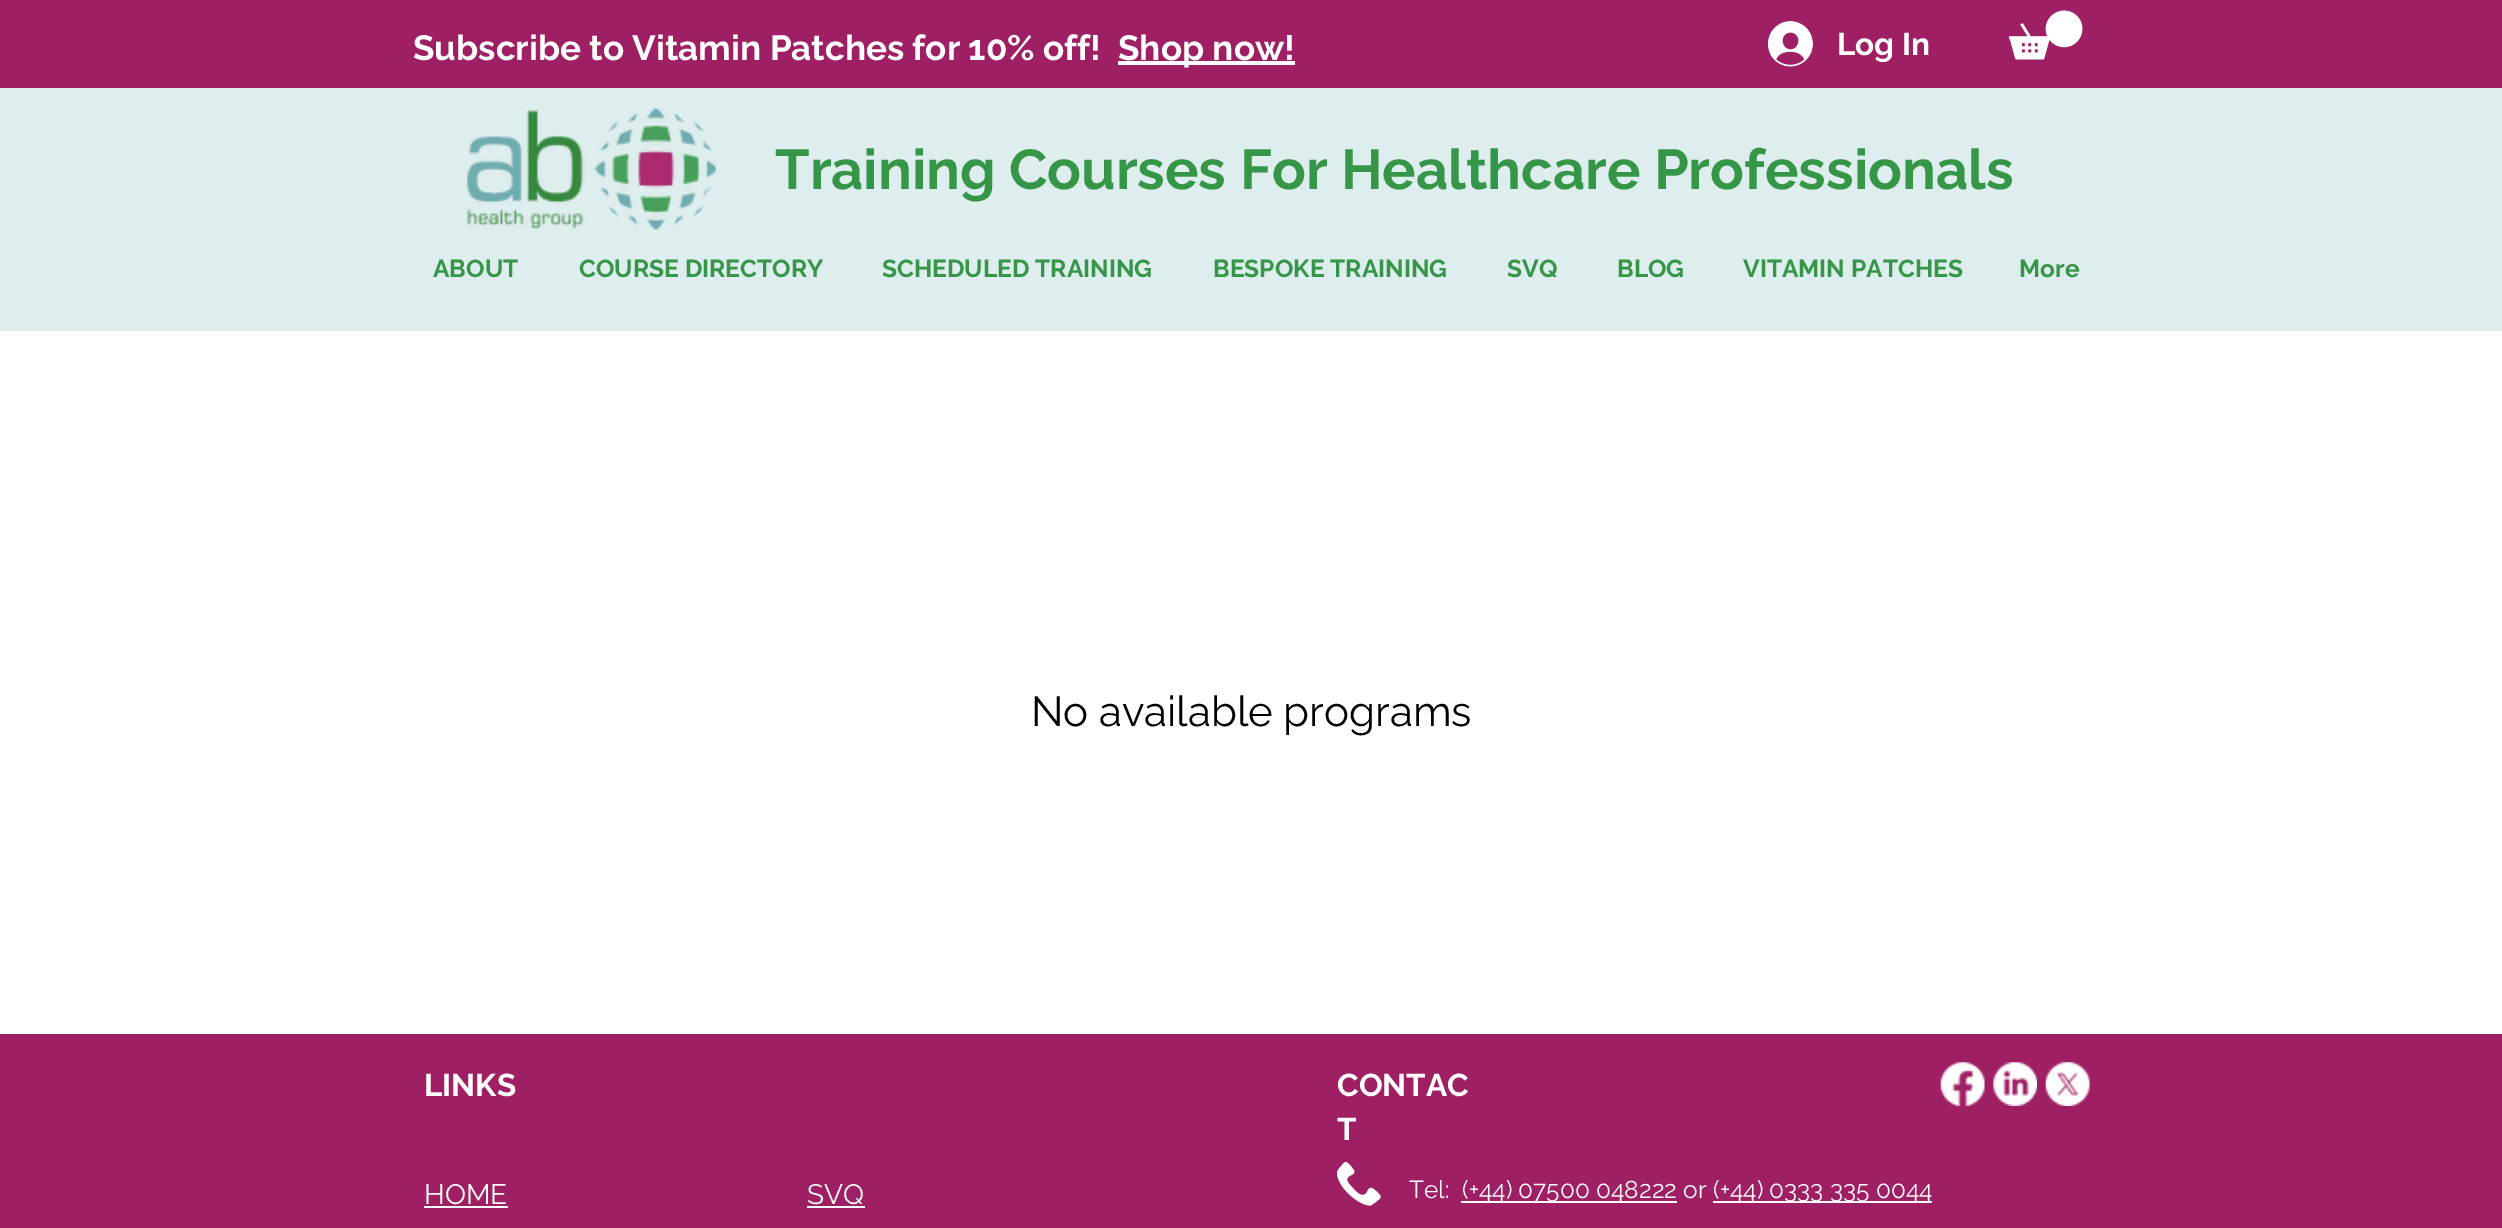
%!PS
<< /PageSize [2502 1228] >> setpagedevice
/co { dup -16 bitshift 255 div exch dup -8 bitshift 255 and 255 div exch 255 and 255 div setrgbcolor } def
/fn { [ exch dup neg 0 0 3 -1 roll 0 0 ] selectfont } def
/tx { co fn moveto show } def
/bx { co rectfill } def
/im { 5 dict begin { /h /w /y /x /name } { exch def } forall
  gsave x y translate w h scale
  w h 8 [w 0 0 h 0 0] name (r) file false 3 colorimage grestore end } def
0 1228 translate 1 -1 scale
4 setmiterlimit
0 0 2502 1228 16#FFFFFF bx
0 0 2502 88 16#9E1F63 bx
1118 61 177 4 16#FFFFFF bx
(media/1.raw) 1768 21 45 46 im
(media/2.raw) 2009 10 74 50 im
0 88 2502 243 16#DEEDEE bx
(media/3.raw) 467 108 249 122 im
0 1034 2502 194 16#9E1F63 bx
(media/4.raw) 1940 1062 45 44 im
(media/5.raw) 1993 1062 44 44 im
(media/6.raw) 2045 1062 45 44 im
424 1206 84 2 16#FFFFFF bx
807 1206 58 2 16#FFFFFF bx
(media/7.raw) 1337 1162 44 44 im
1461 1201 216 2 16#FFFFFF bx
1713 1201 219 2 16#FFFFFF bx
(Subscribe to Vitamin Patches for 10% off!) 413 60 /Raleway-Bold 35 16#FFFFFF tx
(Shop now!) 1118 60 /Raleway-Bold 35 16#FFFFFF tx
(Log In) 1837 55 /Raleway-Bold 31.5 16#FFFFFF tx
(Training Courses For Healthcare Professionals) 775 189 /Raleway-Bold 56 16#359648 tx
(ABOUT) 433 277 /Raleway-Bold 24.5 16#359648 tx
(COURSE DIRECTORY) 579 277 /Raleway-Bold 24.5 16#359648 tx
(SCHEDULED TRAINING) 882 277 /Raleway-Bold 24.5 16#359648 tx
(BESPOKE TRAINING) 1213 277 /Raleway-Bold 24.5 16#359648 tx
(SVQ) 1507 277 /Raleway-Bold 24.5 16#359648 tx
(BLOG) 1617 277 /Raleway-Bold 24.5 16#359648 tx
(VITAMIN PATCHES) 1743 277 /Raleway-Bold 24.5 16#359648 tx
(More) 2019 277 /Raleway-Bold 24.5 16#359648 tx
(No available programs) 1031 726 /Raleway-Regular 42 16#000000 tx
(LINKS) 424 1096 /Raleway-Bold 31.5 16#FFFFFF tx
(CONTAC) 1337 1096 /Raleway-Bold 31.5 16#FFFFFF tx
(T) 1337 1140 /Raleway-Bold 31.5 16#FFFFFF tx
(HOME) 424 1204 /Raleway-Regular 28 16#FFFFFF tx
(SVQ) 807 1204 /Raleway-Regular 28 16#FFFFFF tx
(Tel:) 1409 1198 /Raleway-Regular 24.5 16#FFFFFF tx
(\(+44\) 07500 048222 or) 1462 1198 /Raleway-Regular 24.5 16#FFFFFF tx
(\(+44\) 0333 335 0044) 1713 1198 /Raleway-Regular 24.5 16#FFFFFF tx
showpage
